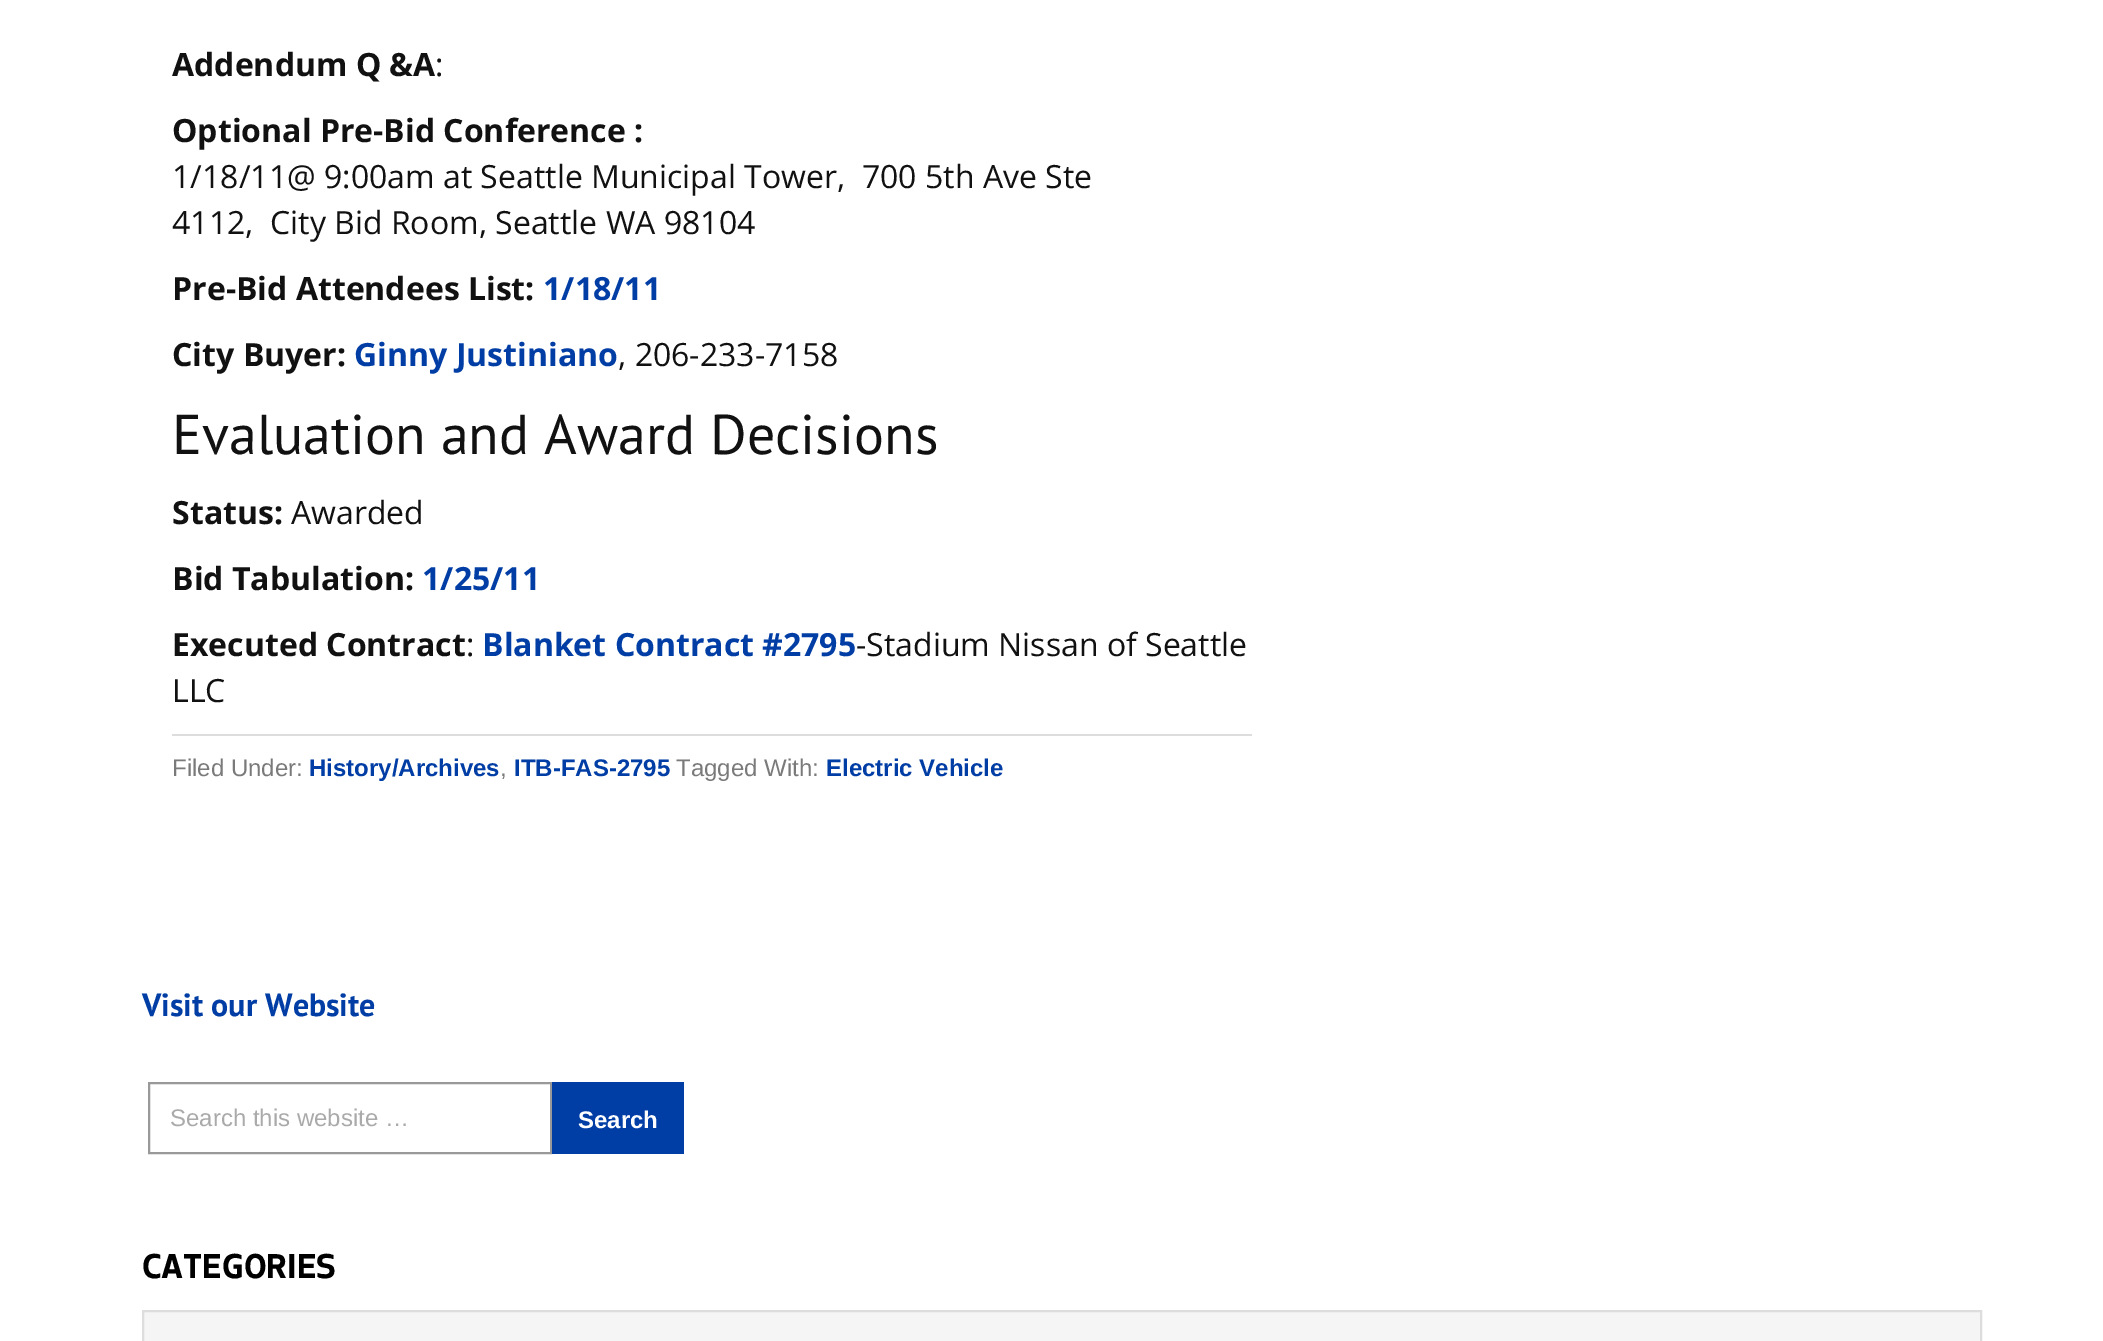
%!PS
<< /PageSize [2103 1341] >> setpagedevice
/mt/moveto load def
/li/lineto load def
/cp/closepath load def
/fl/fill load def
/st/stroke load def
/gs/gsave load def
/gr/grestore load def
/lw/setlinewidth load def
/co { dup -16 bitshift 255 div exch dup -8 bitshift 255 and 255 div exch 255 and 255 div setrgbcolor } def
/fn { [ exch dup neg 0 0 3 -1 roll 0 0 ] selectfont } def
/tx { co fn moveto show } def
/bx { co rectfill } def
0 1341 translate 1 -1 scale
4 setmiterlimit
0 0 2103 1341 16#FFFFFF bx
172 734 1080 2 16#DDDDDD bx
16#999999 co
2 lw
149 1083 402 70 rectstroke
552 1082 132 72 16#003DA5 bx
16#F5F5F5 co
143 1311 mt 1981 1311 li 1981 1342 li 143 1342 li cp gs fl gr
16#DDDDDD co
st
(Addendum Q &A) 172 76 /OpenSans-Bold 32 16#111111 tx
(:) 435 76 /OpenSans-Regular 32 16#111111 tx
(Optional Pre-Bid Conference :) 172 142 /OpenSans-Bold 32 16#111111 tx
(1/18/11@ 9:00am at Seattle Municipal Tower,  700 5th Ave Ste) 172 188 /OpenSans-Regular 32 16#111111 tx
(4112,  City Bid Room, Seattle WA 98104) 172 234 /OpenSans-Regular 32 16#111111 tx
(Pre-Bid Attendees List:) 172 300 /OpenSans-Bold 32 16#111111 tx
(1/18/11) 543 300 /OpenSans-Bold 32 16#003DA5 tx
(City Buyer:) 172 366 /OpenSans-Bold 32 16#111111 tx
(Ginny Justiniano) 354 366 /OpenSans-Bold 32 16#003DA5 tx
(, 206-233-7158) 618 366 /OpenSans-Regular 32 16#111111 tx
(Evaluation and Award Decisions) 172 454 /PTSans-Regular 56 16#111111 tx
(Status:) 172 524 /OpenSans-Bold 32 16#111111 tx
(Awarded) 291 524 /OpenSans-Regular 32 16#111111 tx
(Bid Tabulation:) 172 590 /OpenSans-Bold 32 16#111111 tx
(1/25/11) 422 590 /OpenSans-Bold 32 16#003DA5 tx
(Executed Contract) 172 656 /OpenSans-Bold 32 16#111111 tx
(:) 466 656 /OpenSans-Regular 32 16#111111 tx
(Blanket Contract #2795) 482 656 /OpenSans-Bold 32 16#003DA5 tx
(-Stadium Nissan of Seattle) 856 656 /OpenSans-Regular 32 16#111111 tx
(LLC) 172 702 /OpenSans-Regular 32 16#111111 tx
(Filed Under:) 172 776 /LiberationSans-Regular 24 16#7A7A7A tx
(History/Archives) 309 776 /LiberationSans-Bold 24 16#003DA5 tx
(,) 500 776 /LiberationSans-Regular 24 16#7A7A7A tx
(ITB-FAS-2795) 514 776 /LiberationSans-Bold 24 16#003DA5 tx
(Tagged With:) 676 776 /LiberationSans-Regular 24 16#7A7A7A tx
(Electric Vehicle) 826 776 /LiberationSans-Bold 24 16#003DA5 tx
(Visit our Website) 142 1016 /PTSans-Bold 32 16#003DA5 tx
(Search this website …) 170 1126 /LiberationSans-Regular 24 16#AAAAAA tx
(Search) 578 1128 /LiberationSans-Bold 24 16#FFFFFF tx
(CATEGORIES) 142 1278 /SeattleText-Bold 36 16#000000 tx
showpage
